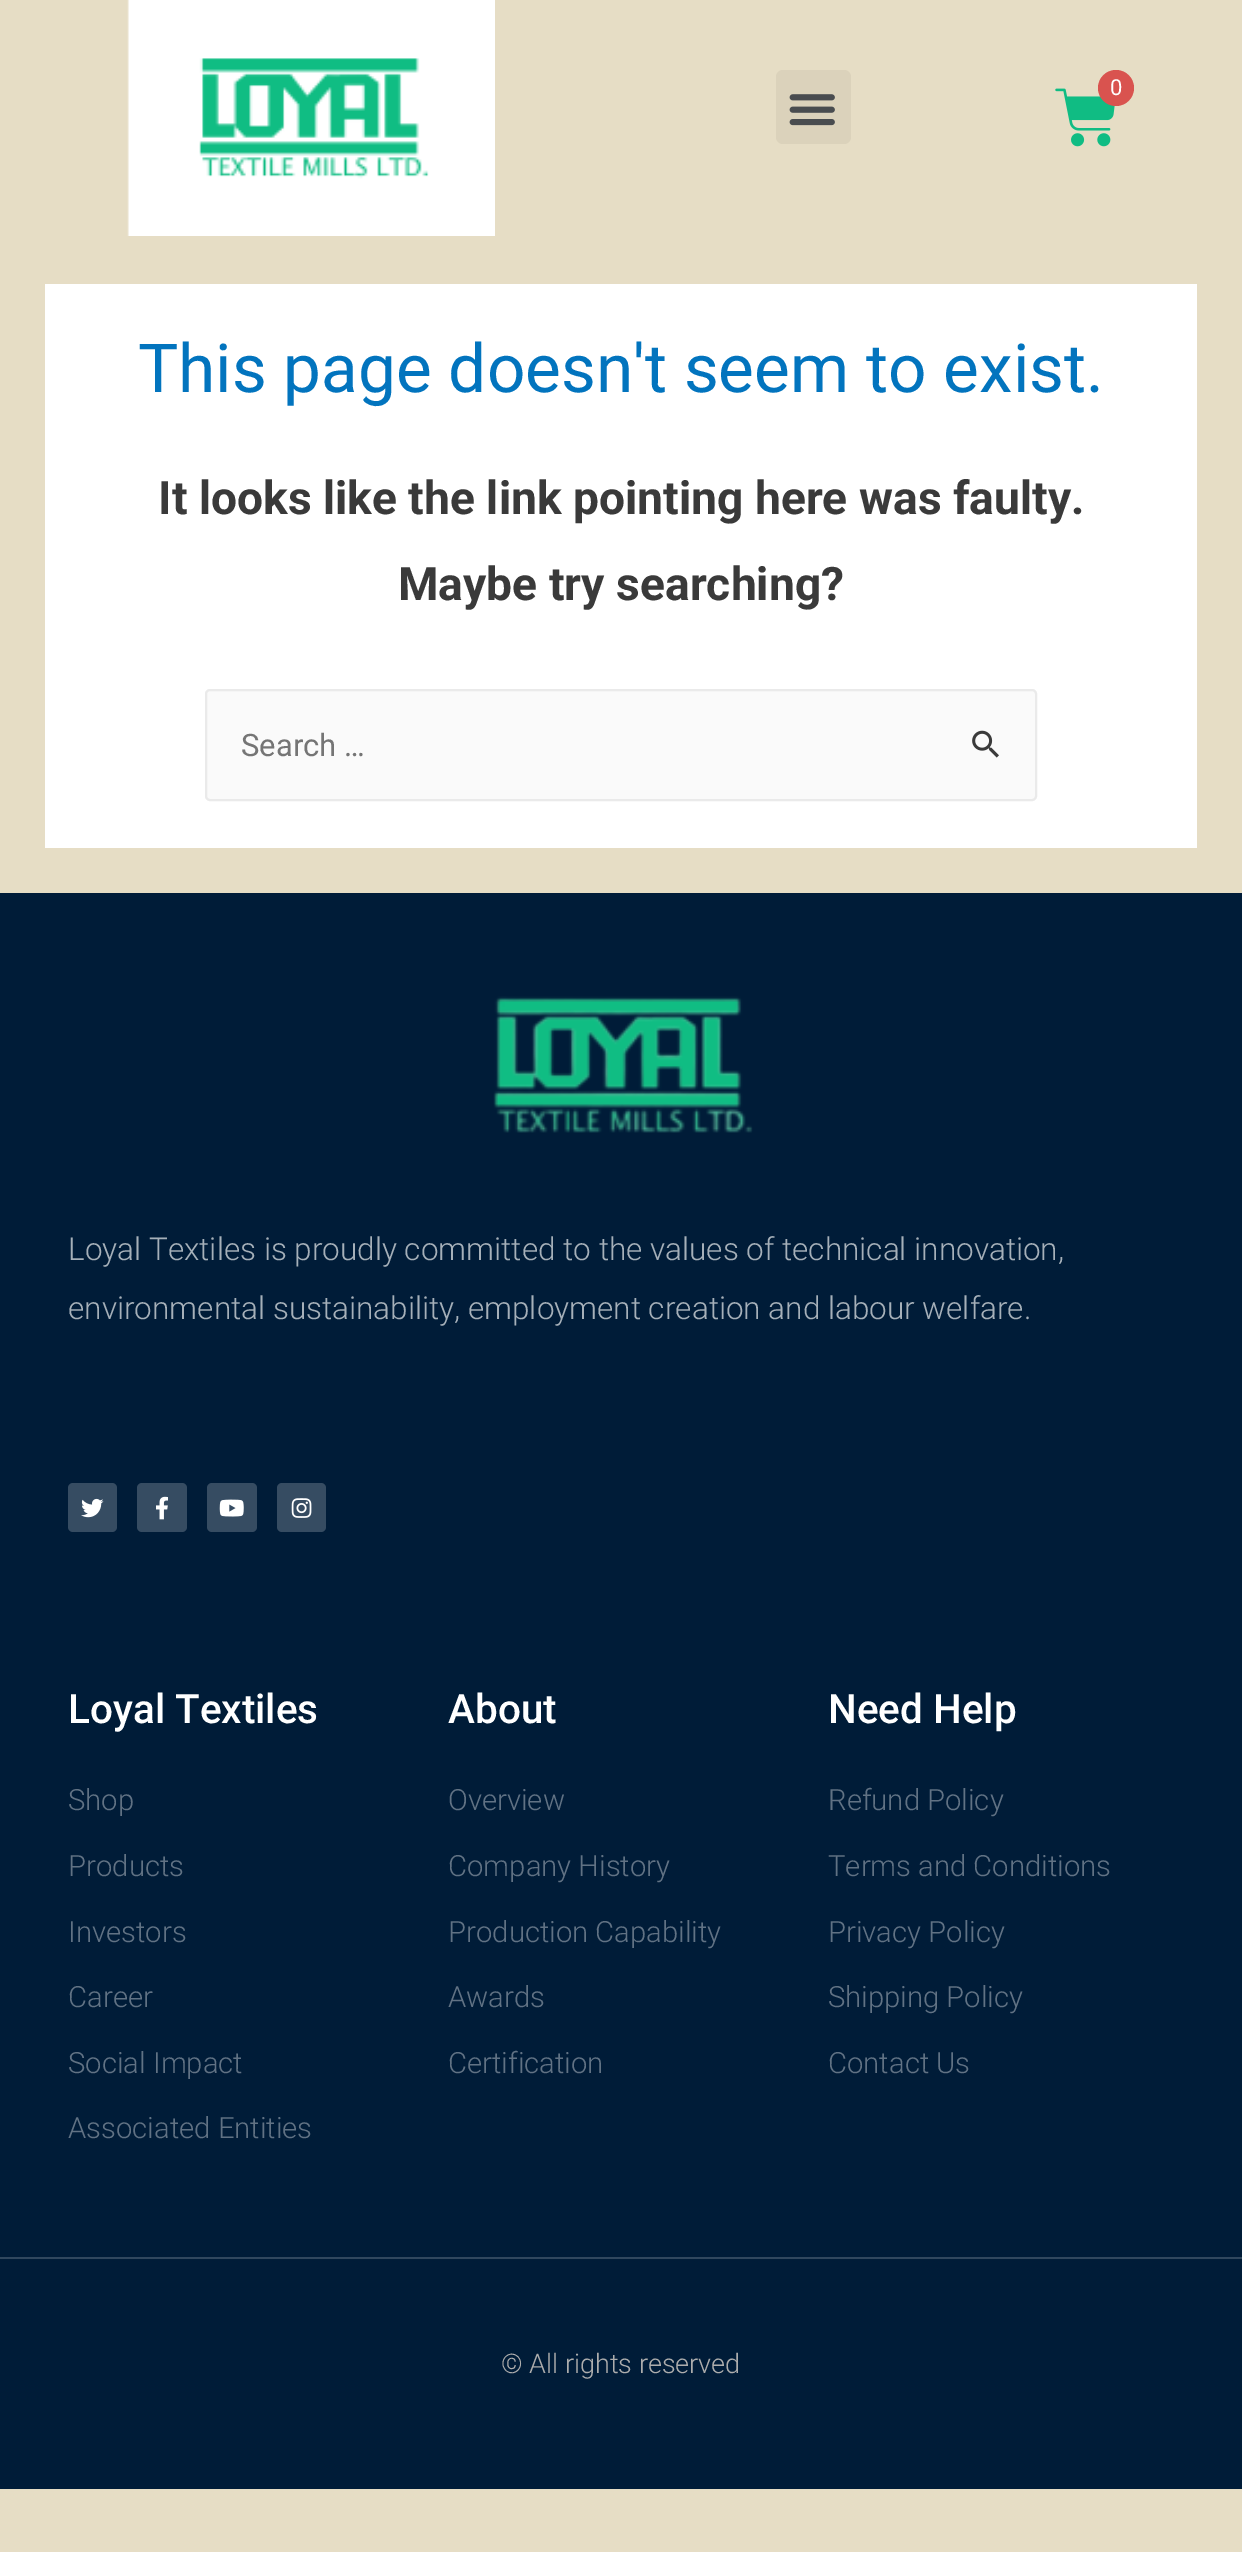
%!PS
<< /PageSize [1242 2552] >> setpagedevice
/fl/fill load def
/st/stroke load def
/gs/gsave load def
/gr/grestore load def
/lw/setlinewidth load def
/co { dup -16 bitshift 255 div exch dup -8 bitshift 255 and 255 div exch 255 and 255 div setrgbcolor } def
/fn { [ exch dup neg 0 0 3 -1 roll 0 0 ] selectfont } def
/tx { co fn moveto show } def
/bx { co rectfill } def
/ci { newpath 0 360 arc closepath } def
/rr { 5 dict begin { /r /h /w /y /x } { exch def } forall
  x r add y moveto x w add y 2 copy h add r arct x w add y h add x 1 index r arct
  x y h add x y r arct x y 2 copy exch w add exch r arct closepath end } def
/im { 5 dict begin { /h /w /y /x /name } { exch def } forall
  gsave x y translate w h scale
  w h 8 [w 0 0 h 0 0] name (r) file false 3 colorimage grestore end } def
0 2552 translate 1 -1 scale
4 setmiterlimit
0 0 1242 2552 16#E6DDC5 bx
(media/1.raw) 127 0 368 236 im
16#DBD2BB co
776 70 75 74 7 rr fl
(media/2.raw) 789 94 46 32 im
(media/3.raw) 1055 88 60 59 im
16#D9534F co
1116 88 18 ci fl
45 284 1152 564 16#FFFFFF bx
16#FAFAFA co
206 690 830 110 4 rr gs fl gr
16#EAEAEA co
2 lw
st
(media/4.raw) 972 730 27 28 im
0 893 1242 1364 16#001C38 bx
(media/5.raw) 493 996 260 137 im
16#364C62 co
68 1483 49 49 5 rr fl
(media/6.raw) 81 1498 23 20 im
137 1483 50 49 5 rr fl
(media/7.raw) 156 1496 12 24 im
207 1483 50 49 5 rr fl
(media/8.raw) 219 1499 25 18 im
277 1483 49 49 5 rr fl
(media/9.raw) 291 1498 21 20 im
0 2259 1242 230 16#001C38 bx
0 2257 1242 2 16#30475E bx
(0) 1110 95 /Roboto-Regular 22 16#FFFFFF tx
(This page doesn't seem to exist.) 138 392 /Roboto-Regular 67.5 16#0274BE tx
(It looks like the link pointing here was faulty.) 158 514 /Roboto-Bold 46.2 16#3A3A3A tx
(Maybe try searching?) 398 600 /Roboto-Bold 46.2 16#3A3A3A tx
(Search …) 241 756 /Roboto-Regular 31 16#757575 tx
(Loyal Textiles is proudly committed to the values of technical innovation,) 68 1260 /Roboto-Light 31.5 16#A6B0B9 tx
(environmental sustainability, employment creation and labour welfare.) 68 1319 /Roboto-Light 31.5 16#A6B0B9 tx
(Loyal Textiles) 68 1723 /Roboto-Medium 40.5 16#FFFFFF tx
(Shop) 68 1810 /Roboto-Light 29.25 16#617284 tx
(Products) 68 1876 /Roboto-Light 29.25 16#617284 tx
(Investors) 68 1942 /Roboto-Light 29.25 16#617284 tx
(Career) 68 2007 /Roboto-Light 29.25 16#617284 tx
(Social Impact) 68 2073 /Roboto-Light 29.25 16#617284 tx
(Associated Entities) 68 2138 /Roboto-Light 29.25 16#617284 tx
(About) 448 1723 /Roboto-Medium 40.5 16#FFFFFF tx
(Overview) 448 1810 /Roboto-Light 29.25 16#617284 tx
(Company History) 448 1876 /Roboto-Light 29.25 16#617284 tx
(Production Capability) 448 1942 /Roboto-Light 29.25 16#617284 tx
(Awards) 448 2007 /Roboto-Light 29.25 16#617284 tx
(Certification) 448 2073 /Roboto-Light 29.25 16#617284 tx
(Need Help) 828 1723 /Roboto-Medium 40.5 16#FFFFFF tx
(Refund Policy) 828 1810 /Roboto-Light 29.25 16#617284 tx
(Terms and Conditions) 828 1876 /Roboto-Light 29.25 16#617284 tx
(Privacy Policy) 828 1942 /Roboto-Light 29.25 16#617284 tx
(Shipping Policy) 828 2007 /Roboto-Light 29.25 16#617284 tx
(Contact Us) 828 2073 /Roboto-Light 29.25 16#617284 tx
(© All rights reserved) 501 2373 /Roboto-Light 27 16#ADADAD tx
showpage
